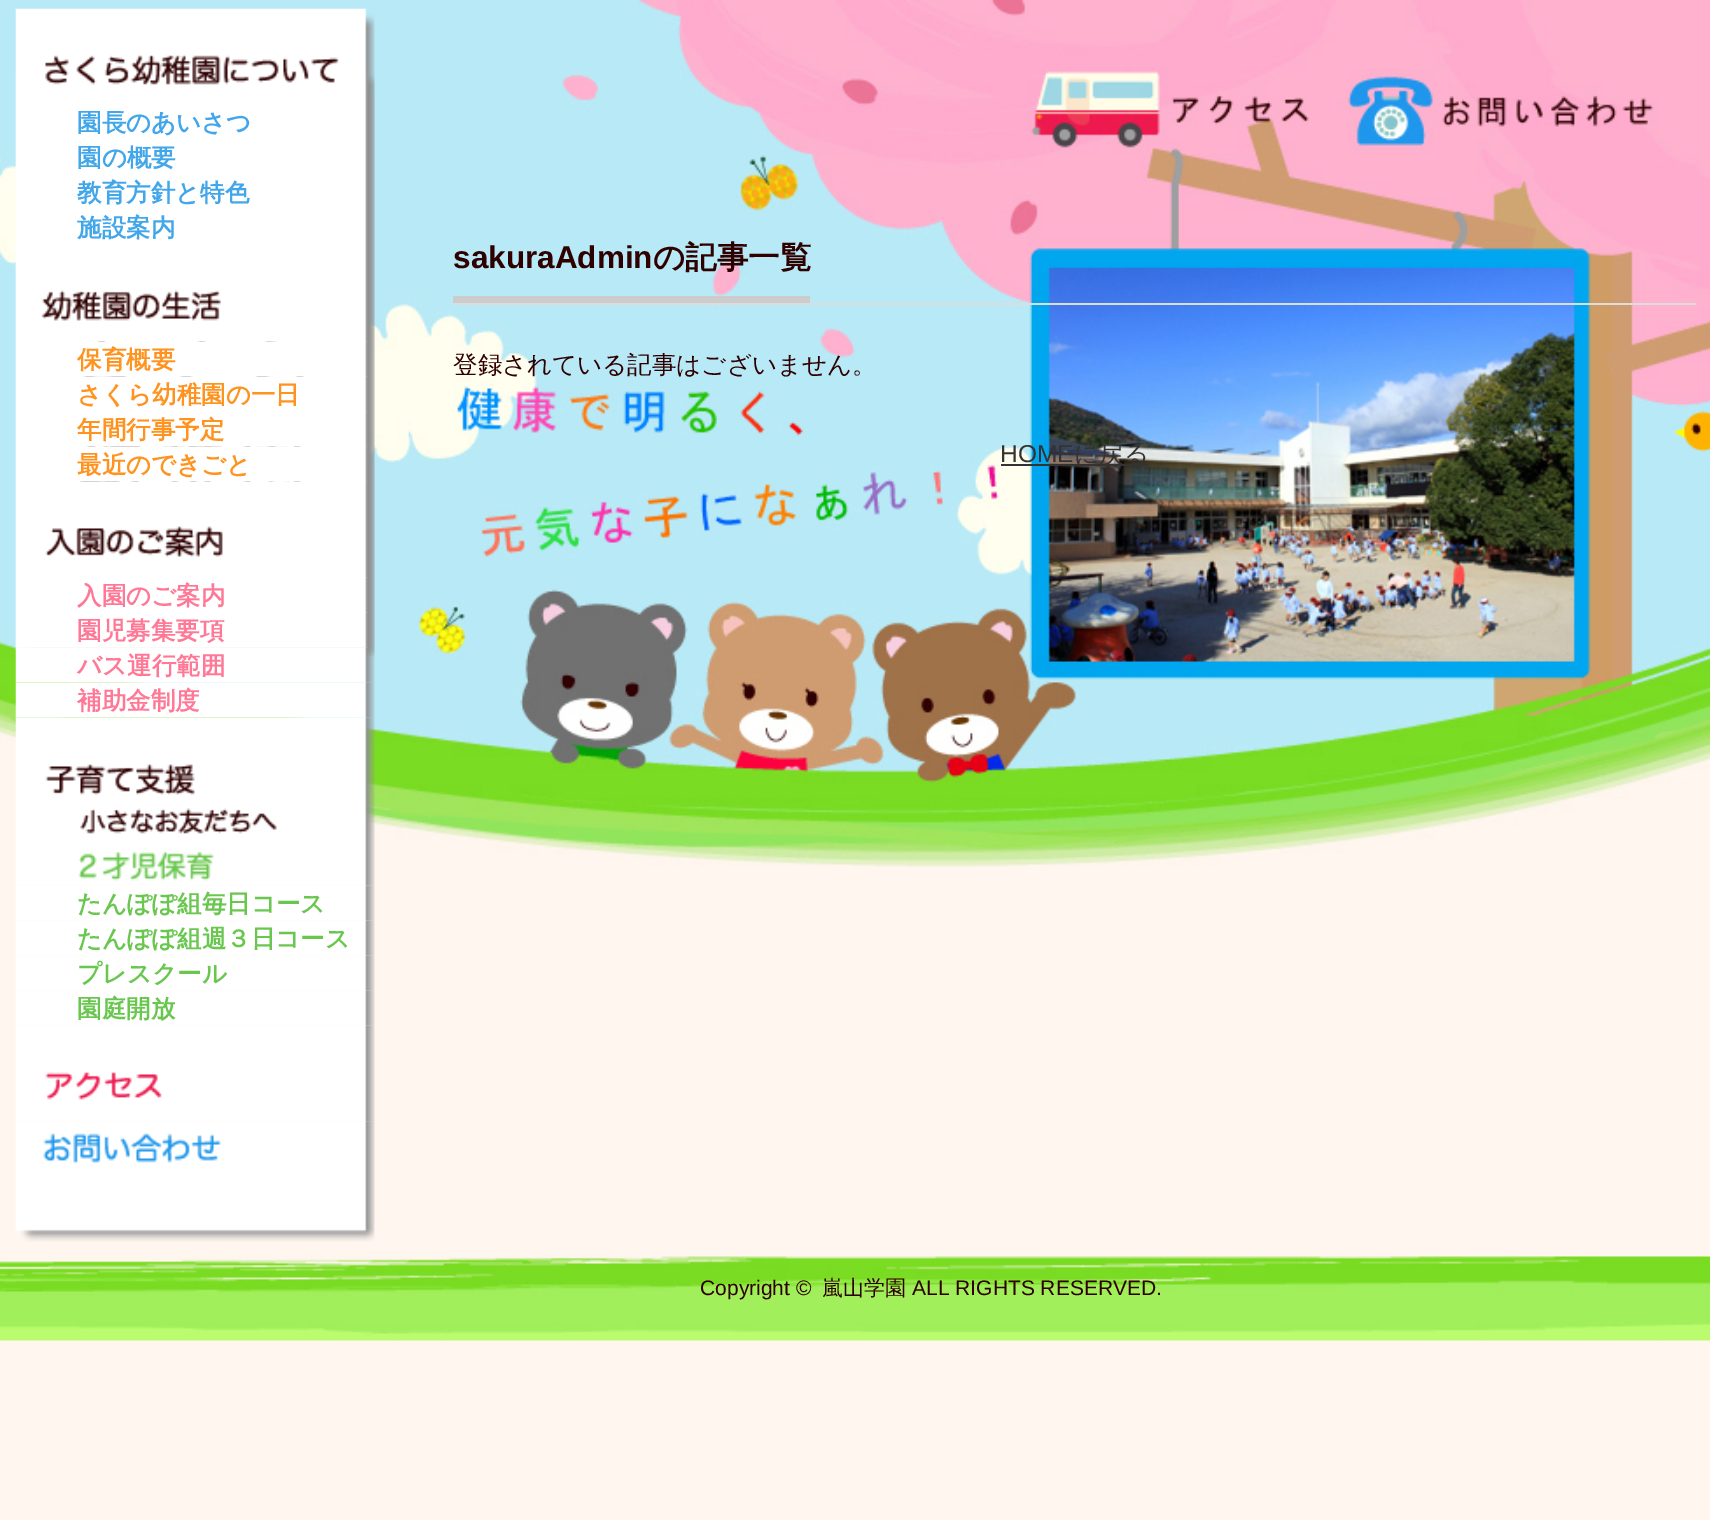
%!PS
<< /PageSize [1710 1520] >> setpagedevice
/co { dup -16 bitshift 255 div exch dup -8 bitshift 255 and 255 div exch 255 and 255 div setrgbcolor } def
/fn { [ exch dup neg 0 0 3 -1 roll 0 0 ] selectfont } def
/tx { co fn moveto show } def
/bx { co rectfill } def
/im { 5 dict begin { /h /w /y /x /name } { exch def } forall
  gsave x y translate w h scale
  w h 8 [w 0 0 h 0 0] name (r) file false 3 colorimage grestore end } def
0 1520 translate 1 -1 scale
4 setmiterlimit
0 0 1710 1520 16#FFF6EF bx
(media/1.raw) 0 0 1710 867 im
(media/2.raw) 15 70 360 587 im
(media/3.raw) 15 8 360 97 im
(media/4.raw) 15 105 360 35 im
(media/5.raw) 15 140 360 35 im
(media/6.raw) 16 175 359 35 im
(media/6.raw) 16 210 359 35 im
(media/8.raw) 15 341 360 36 im
(media/7.raw) 15 245 360 97 im
(media/9.raw) 15 376 360 36 im
(media/10.raw) 15 411 360 36 im
(media/11.raw) 15 446 360 36 im
(media/13.raw) 15 577 360 36 im
(media/12.raw) 15 481 360 97 im
(media/14.raw) 15 612 360 36 im
(media/15.raw) 15 647 360 36 im
(media/16.raw) 15 682 360 36 im
(media/18.raw) 15 885 360 36 im
(media/17.raw) 15 717 360 169 im
(media/19.raw) 15 920 360 36 im
(media/19.raw) 15 955 360 36 im
(media/19.raw) 15 990 360 36 im
(media/20.raw) 15 1025 360 97 im
(media/21.raw) 15 1121 360 121 im
453 303 1243 2 16#DDDDDD bx
453 296 357 7 16#CCCCCC bx
1001 464 147 2 16#333333 bx
(media/22.raw) 0 1256 1710 85 im
(園長のあいさつ) 77 131 /WenQuanYiZenHei-Bold 24.5 16#41A6EA tx
(園の概要) 77 166 /WenQuanYiZenHei-Bold 24.5 16#41A6EA tx
(教育方針と特色) 77 201 /WenQuanYiZenHei-Bold 24.5 16#41A6EA tx
(施設案内) 77 236 /WenQuanYiZenHei-Bold 24.5 16#41A6EA tx
(保育概要) 77 368 /WenQuanYiZenHei-Bold 24.5 16#FE931F tx
(さくら幼稚園の一日) 77 403 /WenQuanYiZenHei-Bold 24.5 16#FE931F tx
(年間行事予定) 77 438 /WenQuanYiZenHei-Bold 24.5 16#FE931F tx
(最近のできごと) 77 473 /WenQuanYiZenHei-Bold 24.5 16#FE931F tx
(入園のご案内) 77 604 /WenQuanYiZenHei-Bold 24.5 16#FF7896 tx
(園児募集要項) 77 639 /WenQuanYiZenHei-Bold 24.5 16#FF7896 tx
(バス運行範囲) 77 674 /WenQuanYiZenHei-Bold 24.5 16#FF7896 tx
(補助金制度) 77 709 /WenQuanYiZenHei-Bold 24.5 16#FF7896 tx
(たんぽぽ組毎日コース) 77 912 /WenQuanYiZenHei-Bold 24.5 16#69C74F tx
(たんぽぽ組週３日コース) 77 947 /WenQuanYiZenHei-Bold 24.5 16#69C74F tx
(プレスクール) 77 982 /WenQuanYiZenHei-Bold 24.5 16#69C74F tx
(園庭開放) 77 1017 /WenQuanYiZenHei-Bold 24.5 16#69C74F tx
(sakuraAdmin) 453 268 /LiberationSans-Bold 31.5 16#2F0000 tx
(の記事一覧) 653 268 /WenQuanYiZenHei-Bold 31.5 16#2F0000 tx
(登録されている記事はございません。) 453 373 /WenQuanYiZenHei-Medium 24.5 16#2F0000 tx
(HOME) 1000 462 /LiberationSans-Regular 24.5 16#333333 tx
(に戻る) 1074 462 /WenQuanYiZenHei-Medium 24.5 16#333333 tx
(Copyright ©) 700 1295 /LiberationSans-Regular 21 16#2F0000 tx
(嵐山学園) 822 1295 /WenQuanYiZenHei-Medium 21 16#2F0000 tx
(ALL RIGHTS RESERVED.) 912 1295 /LiberationSans-Regular 21 16#2F0000 tx
showpage
